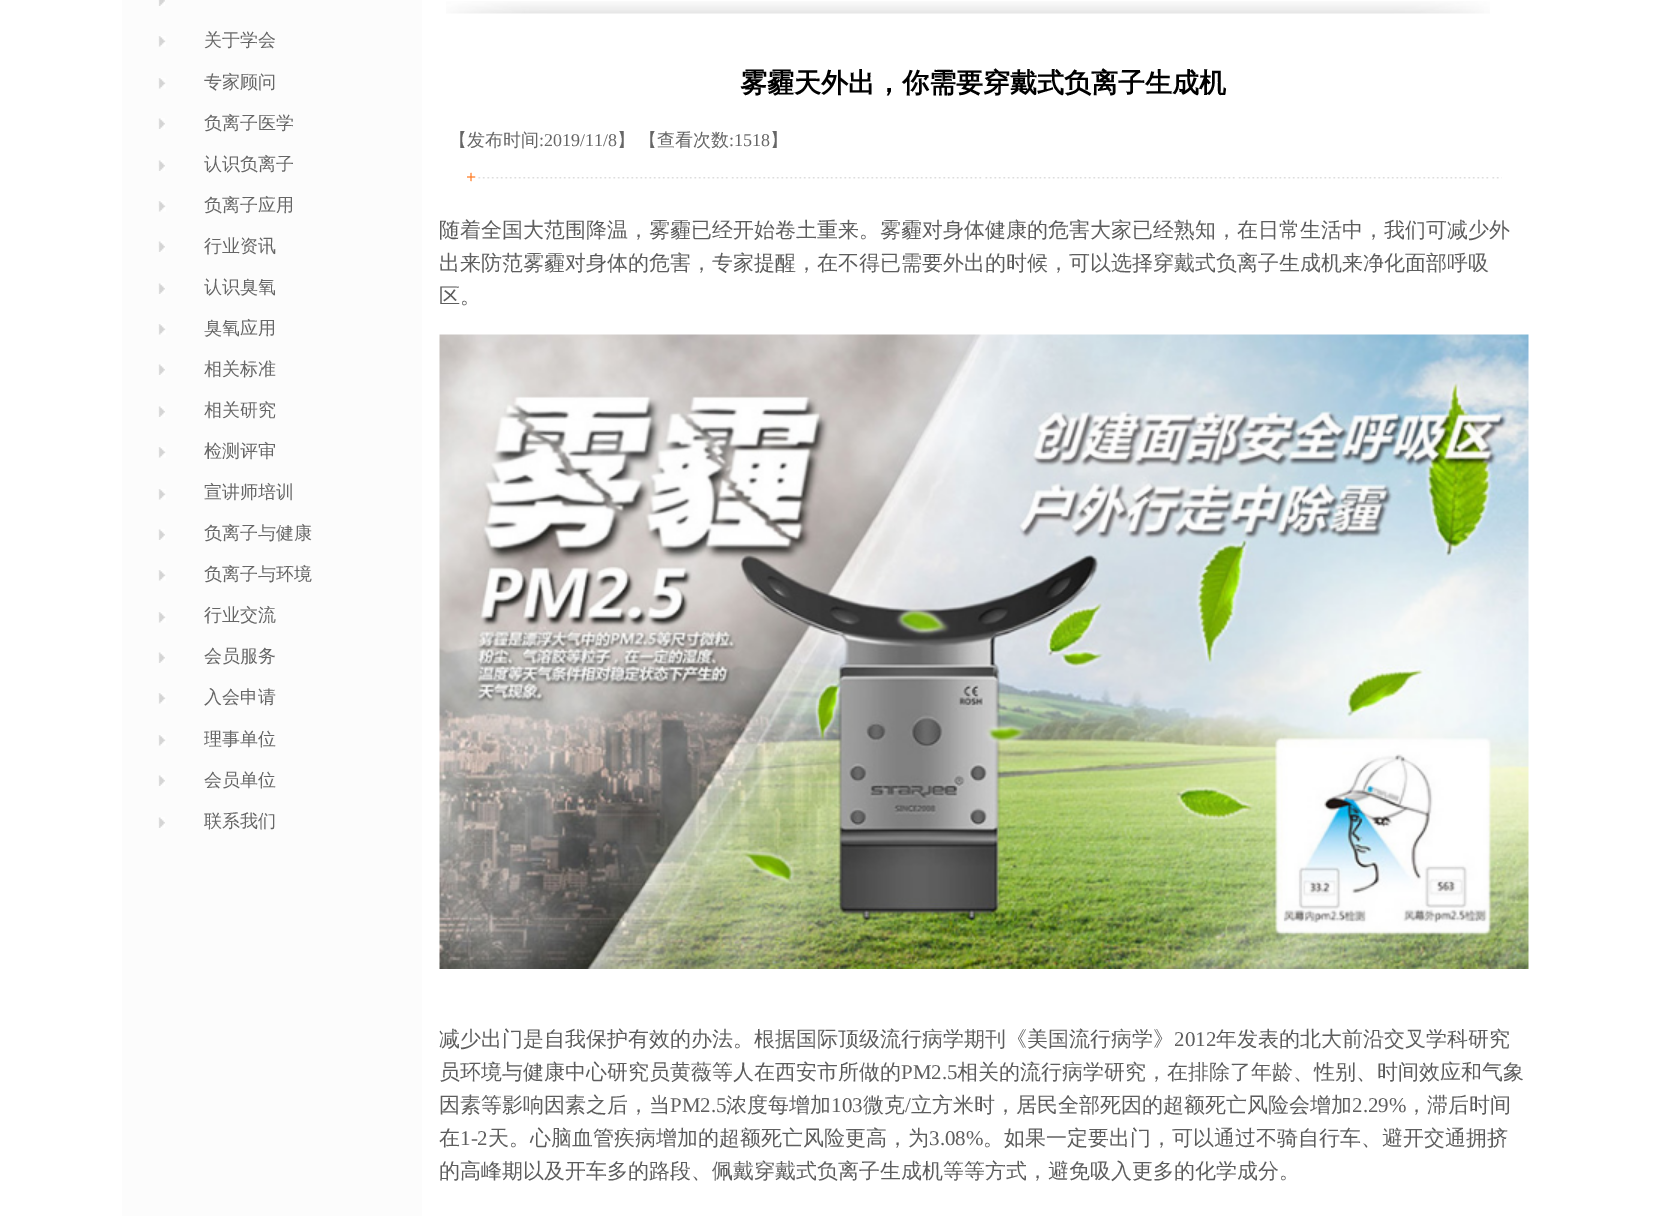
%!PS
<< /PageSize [1666 1216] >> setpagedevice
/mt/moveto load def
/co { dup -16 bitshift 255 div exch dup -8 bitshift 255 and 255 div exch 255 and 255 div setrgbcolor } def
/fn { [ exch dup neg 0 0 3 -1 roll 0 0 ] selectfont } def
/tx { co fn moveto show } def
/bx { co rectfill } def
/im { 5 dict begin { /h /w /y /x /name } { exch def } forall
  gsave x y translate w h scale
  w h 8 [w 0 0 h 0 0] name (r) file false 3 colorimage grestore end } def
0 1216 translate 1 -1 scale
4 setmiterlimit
0 0 1666 1216 16#FFFFFF bx
122 0 300 1216 16#FCFCFC bx
(media/1.raw) 158 0 7 6 im
(media/2.raw) 158 36 8 11 im
(media/2.raw) 158 78 8 11 im
(media/3.raw) 158 118 7 11 im
(media/3.raw) 158 160 7 11 im
(media/2.raw) 158 201 8 11 im
(media/3.raw) 158 241 7 11 im
(media/3.raw) 158 283 7 11 im
(media/2.raw) 158 324 8 11 im
(media/3.raw) 158 364 7 11 im
(media/3.raw) 158 406 7 11 im
(media/2.raw) 158 447 8 11 im
(media/2.raw) 158 489 8 11 im
(media/3.raw) 158 529 7 11 im
(media/2.raw) 158 570 8 11 im
(media/2.raw) 158 612 8 11 im
(media/3.raw) 158 652 7 11 im
(media/2.raw) 158 693 8 11 im
(media/2.raw) 158 735 8 11 im
(media/3.raw) 158 775 7 11 im
(media/3.raw) 158 817 7 11 im
(media/4.raw) 446 1 1044 13 im
(media/5.raw) 478 177 1024 2 im
(media/6.raw) 439 334 1090 635 im
(关于学会) 204 46 /WenQuanYiZenHei-Medium 18 16#666666 tx
(专家顾问) 204 88 /WenQuanYiZenHei-Medium 18 16#666666 tx
(负离子医学) 204 129 /WenQuanYiZenHei-Medium 18 16#666666 tx
(认识负离子) 204 170 /WenQuanYiZenHei-Medium 18 16#666666 tx
(负离子应用) 204 211 /WenQuanYiZenHei-Medium 18 16#666666 tx
(行业资讯) 204 252 /WenQuanYiZenHei-Medium 18 16#666666 tx
(认识臭氧) 204 293 /WenQuanYiZenHei-Medium 18 16#666666 tx
(臭氧应用) 204 334 /WenQuanYiZenHei-Medium 18 16#666666 tx
(相关标准) 204 375 /WenQuanYiZenHei-Medium 18 16#666666 tx
(相关研究) 204 416 /WenQuanYiZenHei-Medium 18 16#666666 tx
(检测评审) 204 457 /WenQuanYiZenHei-Medium 18 16#666666 tx
(宣讲师培训) 204 498 /WenQuanYiZenHei-Medium 18 16#666666 tx
(负离子与健康) 204 539 /WenQuanYiZenHei-Medium 18 16#666666 tx
(负离子与环境) 204 580 /WenQuanYiZenHei-Medium 18 16#666666 tx
(行业交流) 204 621 /WenQuanYiZenHei-Medium 18 16#666666 tx
(会员服务) 204 662 /WenQuanYiZenHei-Medium 18 16#666666 tx
(入会申请) 204 703 /WenQuanYiZenHei-Medium 18 16#666666 tx
(理事单位) 204 745 /WenQuanYiZenHei-Medium 18 16#666666 tx
(会员单位) 204 786 /WenQuanYiZenHei-Medium 18 16#666666 tx
(联系我们) 204 827 /WenQuanYiZenHei-Medium 18 16#666666 tx
(雾霾天外出，你需要穿戴式负离子生成机) 740 92 /WenQuanYiZenHei-Bold 27 16#000000 tx
(【发布时间) 449 146 /WenQuanYiZenHei-Medium 18 16#666666 tx
(:2019/11/8) 539 146 /LiberationSerif-Regular 18 16#666666 tx
/WenQuanYiZenHei-Medium 18 fn
617 146 mt -1 0 32 (】 【查看次数) widthshow
(:1518) 729 146 /LiberationSerif-Regular 18 16#666666 tx
(】) 770 146 /WenQuanYiZenHei-Medium 18 16#666666 tx
(+) 466 183 /LiberationSerif-Regular 18 16#FF6600 tx
(随着全国大范围降温，雾霾已经开始卷土重来。雾霾对身体健康的危害大家已经熟知，在日常生活中，我们可减少外) 439 237 /WenQuanYiZenHei-Medium 21 16#5D5D5D tx
(出来防范雾霾对身体的危害，专家提醒，在不得已需要外出的时候，可以选择穿戴式负离子生成机来净化面部呼吸) 439 270 /WenQuanYiZenHei-Medium 21 16#5D5D5D tx
(区。) 439 303 /WenQuanYiZenHei-Medium 21 16#5D5D5D tx
(减少出门是自我保护有效的办法。根据国际顶级流行病学期刊《美国流行病学》) 439 1046 /WenQuanYiZenHei-Medium 21 16#5D5D5D tx
(2012) 1174 1046 /LiberationSerif-Regular 21 16#5D5D5D tx
(年发表的北大前沿交叉学科研究) 1216 1046 /WenQuanYiZenHei-Medium 21 16#5D5D5D tx
(员环境与健康中心研究员黄薇等人在西安市所做的) 439 1079 /WenQuanYiZenHei-Medium 21 16#5D5D5D tx
(PM2.5) 901 1079 /LiberationSerif-Regular 21 16#5D5D5D tx
(相关的流行病学研究，在排除了年龄、性别、时间效应和气象) 957 1079 /WenQuanYiZenHei-Medium 21 16#5D5D5D tx
(因素等影响因素之后，当) 439 1112 /WenQuanYiZenHei-Medium 21 16#5D5D5D tx
(PM2.5) 670 1112 /LiberationSerif-Regular 21 16#5D5D5D tx
(浓度每增加) 726 1112 /WenQuanYiZenHei-Medium 21 16#5D5D5D tx
(103) 831 1112 /LiberationSerif-Regular 21 16#5D5D5D tx
(微克) 863 1112 /WenQuanYiZenHei-Medium 21 16#5D5D5D tx
(/) 905 1112 /LiberationSerif-Regular 21 16#5D5D5D tx
(立方米时，居民全部死因的超额死亡风险会增加) 911 1112 /WenQuanYiZenHei-Medium 21 16#5D5D5D tx
(2.29%) 1352 1112 /LiberationSerif-Regular 21 16#5D5D5D tx
(，滞后时间) 1406 1112 /WenQuanYiZenHei-Medium 21 16#5D5D5D tx
(在) 439 1145 /WenQuanYiZenHei-Medium 21 16#5D5D5D tx
(1-2) 460 1145 /LiberationSerif-Regular 21 16#5D5D5D tx
(天。心脑血管疾病增加的超额死亡风险更高，为) 488 1145 /WenQuanYiZenHei-Medium 21 16#5D5D5D tx
(3.08%) 929 1145 /LiberationSerif-Regular 21 16#5D5D5D tx
(。如果一定要出门，可以通过不骑自行车、避开交通拥挤) 983 1145 /WenQuanYiZenHei-Medium 21 16#5D5D5D tx
(的高峰期以及开车多的路段、佩戴穿戴式负离子生成机等等方式，避免吸入更多的化学成分。) 439 1178 /WenQuanYiZenHei-Medium 21 16#5D5D5D tx
showpage
